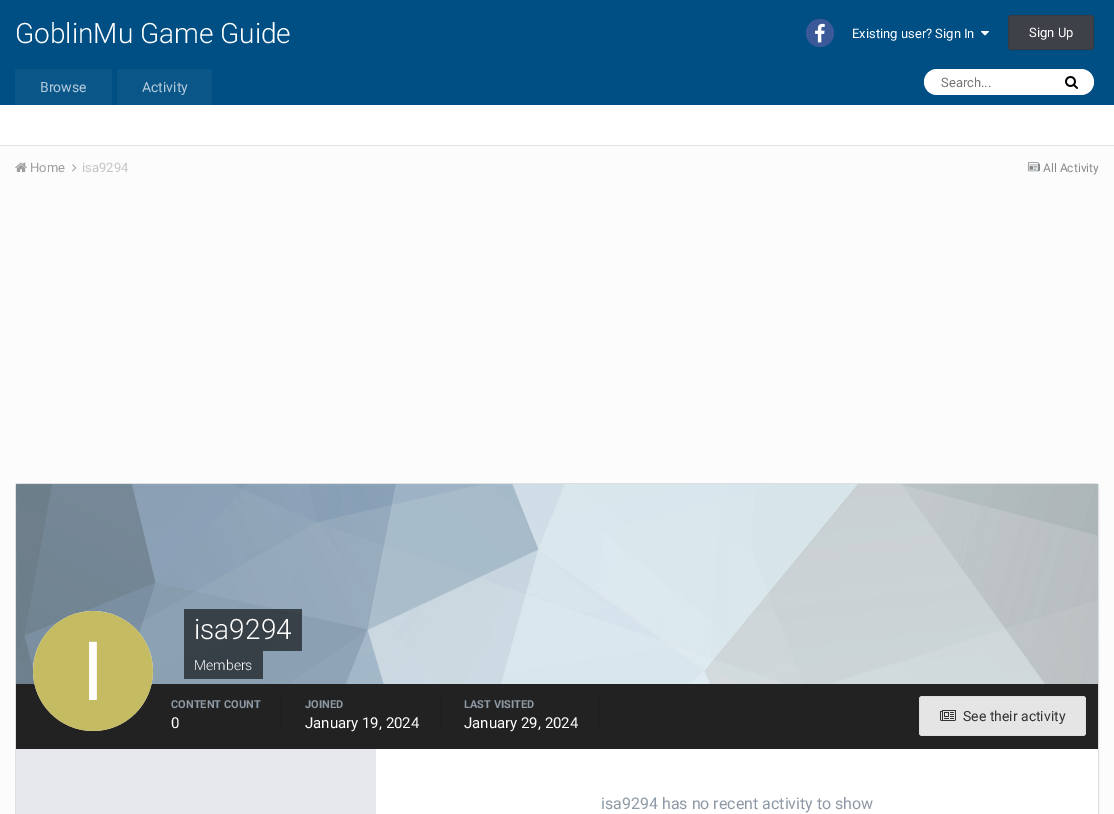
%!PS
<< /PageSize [1114 814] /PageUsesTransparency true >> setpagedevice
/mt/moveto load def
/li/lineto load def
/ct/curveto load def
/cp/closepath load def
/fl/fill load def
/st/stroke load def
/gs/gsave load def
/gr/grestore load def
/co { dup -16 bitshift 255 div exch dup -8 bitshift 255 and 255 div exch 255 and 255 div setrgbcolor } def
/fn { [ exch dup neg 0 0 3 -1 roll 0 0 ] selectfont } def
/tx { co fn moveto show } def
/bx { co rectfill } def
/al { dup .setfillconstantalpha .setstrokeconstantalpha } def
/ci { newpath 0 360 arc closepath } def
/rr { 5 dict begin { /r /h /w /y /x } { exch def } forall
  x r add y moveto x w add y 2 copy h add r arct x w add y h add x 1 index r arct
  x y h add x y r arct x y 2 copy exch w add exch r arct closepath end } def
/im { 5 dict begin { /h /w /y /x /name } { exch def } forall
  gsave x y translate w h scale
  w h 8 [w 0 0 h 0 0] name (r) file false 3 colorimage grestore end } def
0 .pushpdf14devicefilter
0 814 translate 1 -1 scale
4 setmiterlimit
0 0 1114 814 16#FCFCFC bx
0 145 1114 1 16#E3E3E3 bx
0 0 1114 105 16#004F84 bx
16#3B5998 co
820 33 14 ci fl
(media/1.raw) 815 23 10 20 im
(media/2.raw) 981 31 8 5 im
16#3E4148 co
1008 15 86 35 3 rr fl
0.1 al
16#000000 co
1008.5 15.5 85 34 2.5 rr st
1 al
0 105 1114 40 16#FFFFFF bx
16#0A5689 co
17 69 mt 110 69 li 111 69 112 70 112 71 ct 112 105 li 15 105 li 15 71 li 15 70 16 69 17 69 ct cp fl
119 69 mt 210 69 li 211 69 212 70 212 71 ct 212 105 li 117 105 li 117 71 li 117 70 118 69 119 69 ct cp fl
16#FFFFFF co
924 69 170 26 13 rr fl
(media/3.raw) 1065 76 13 13 im
(media/4.raw) 15 162 12 10 im
(media/5.raw) 72 164 5 8 im
(media/6.raw) 1028 162 12 10 im
15.5 483.5 1083 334 2.5 rr gs fl gr
16#E0E0E0 co
st
16 484 1082 200 16#99D8FF bx
(media/7.raw) 16 484 1082 200 im
16 684 1082 65 16#222222 bx
(media/8.raw) 33 611 120 120 im
0.6 al
184 609 118 42 16#000000 bx
1 al
184 651 79 28 16#384047 bx
280 696 1 36 16#1F1F1F bx
440 696 1 36 16#1F1F1F bx
599 696 1 36 16#1F1F1F bx
16#E5E5E5 co
919 696 167 40 3 rr fl
0.03 al
16#000000 co
919.5 696.5 166 39 rectstroke
1 al
(media/9.raw) 940 710 16 11 im
16 749 360 65 16#E6E8EB bx
(GoblinMu Game Guide) 15 43 /Roboto-Light 28 16#FFFFFF tx
(Existing user? Sign In) 852 38 /Roboto-Regular 13 16#FFFFFF tx
(Sign Up) 1029 37 /Roboto-Regular 13 16#FFFFFF tx
(Browse) 40 92 /Roboto-Regular 14 16#B6CCDC tx
(Activity) 142 92 /Roboto-Regular 14 16#B6CCDC tx
(Search...) 941 87 /Roboto-Regular 13 16#757575 tx
(Home) 30 172 /Roboto-Regular 13 16#9F9F9F tx
(isa9294) 82 172 /Roboto-Regular 13 16#C4C4C4 tx
(All Activity) 1043 172 /Roboto-Regular 12 16#85898C tx
(isa9294) 194 639 /Roboto-Light 28 16#FFFFFF tx
(Members) 194 670 /Roboto-Light 14 16#FFFFFF tx
(CONTENT COUNT) 171 708 /Roboto-Bold 11 16#8D9AA6 tx
(0) 171 728 /Roboto-Regular 15 16#FFFFFF tx
(JOINED) 305 708 /Roboto-Bold 11 16#8D9AA6 tx
(January 19, 2024) 305 728 /Roboto-Regular 15 16#FFFFFF tx
(LAST VISITED) 464 708 /Roboto-Bold 11 16#8D9AA6 tx
(January 29, 2024) 464 728 /Roboto-Regular 15 16#FFFFFF tx
(See their activity) 963 721 /Roboto-Regular 14 16#333333 tx
(isa9294 has no recent activity to show) 601 809 /Roboto-Regular 16 16#8D9AA6 tx
.poppdf14devicefilter showpage
